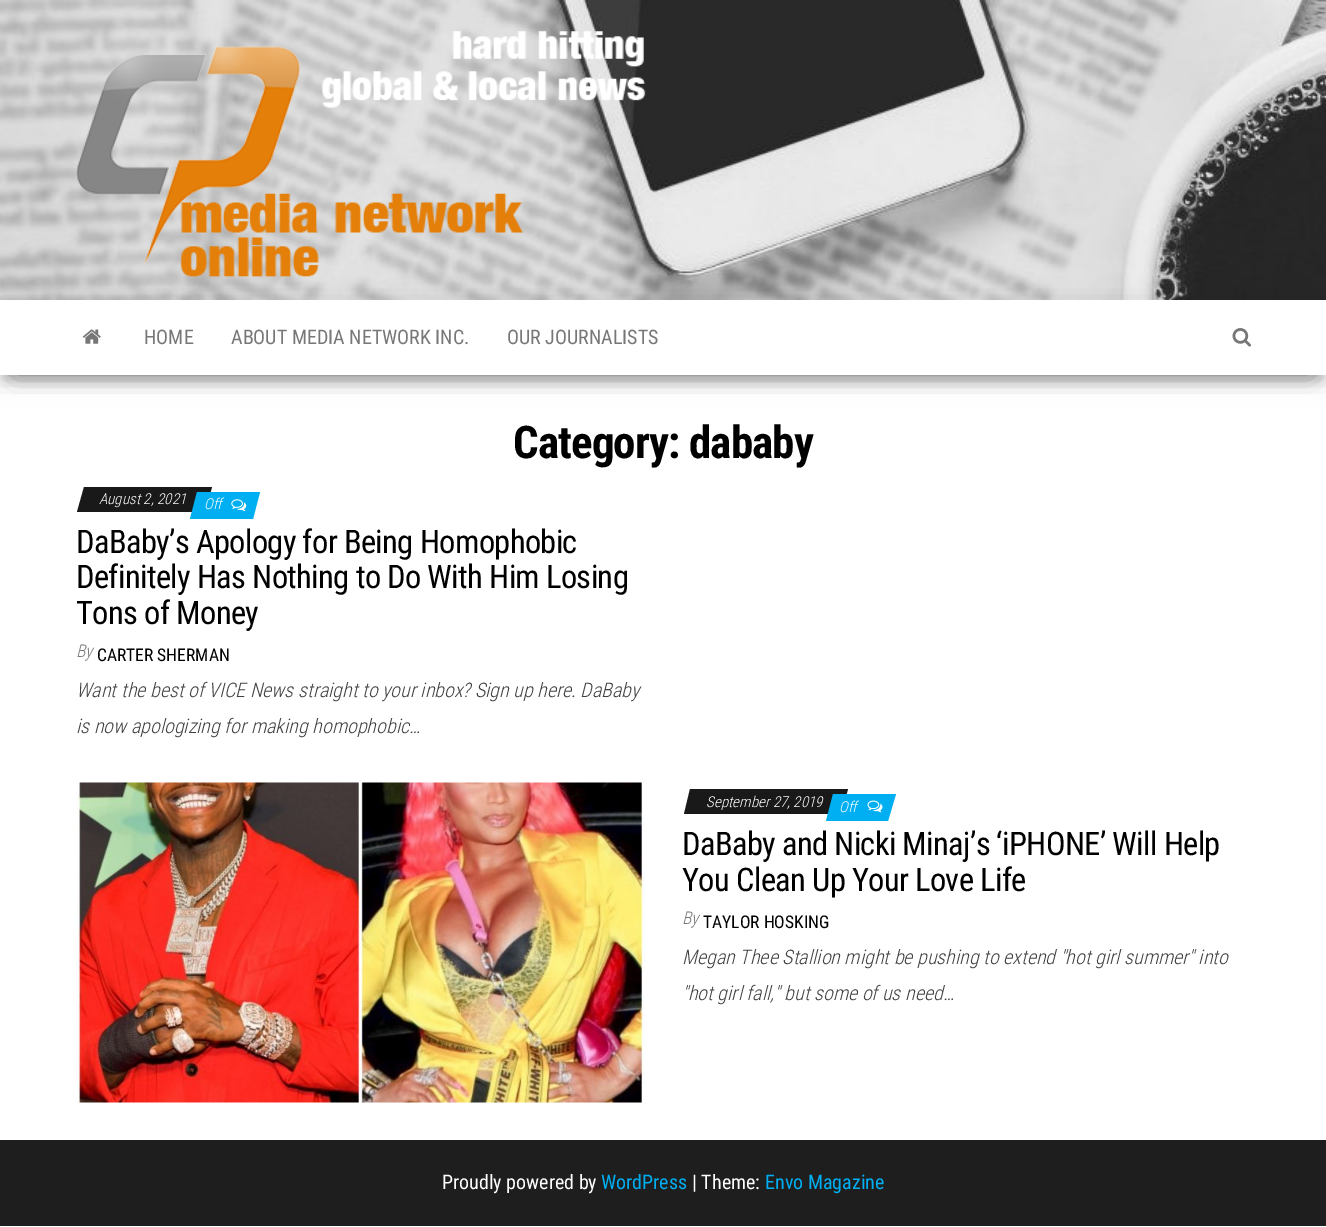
%!PS
<< /PageSize [1326 1227] /PageUsesTransparency true >> setpagedevice
/mt/moveto load def
/li/lineto load def
/cp/closepath load def
/fl/fill load def
/gs/gsave load def
/gr/grestore load def
/co { dup -16 bitshift 255 div exch dup -8 bitshift 255 and 255 div exch 255 and 255 div setrgbcolor } def
/fn { [ exch dup neg 0 0 3 -1 roll 0 0 ] selectfont } def
/tx { co fn moveto show } def
/bx { co rectfill } def
/al { dup .setfillconstantalpha .setstrokeconstantalpha } def
/rr { 5 dict begin { /r /h /w /y /x } { exch def } forall
  x r add y moveto x w add y 2 copy h add r arct x w add y h add x 1 index r arct
  x y h add x y r arct x y 2 copy exch w add exch r arct closepath end } def
/sh { 12 dict begin { /a /b /q /h /w /y /x } { exch def } forall gsave /was 0 def
  9 -2 -9 { dup b mul 4 div /e exch def 1 sub .425 mul 2.718 exch exp 1 add a .99 .min exch div /now exch def
    1 1 now sub 1 was sub div sub al /was now def
    w h .min e 2 mul add 0 gt { x e sub y e sub w e 2 mul add h e 2 mul add
      q e add b .6 mul add w h .min 2 div e add .min 0 .max rr fill } if } for grestore end } def
/im { 5 dict begin { /h /w /y /x /name } { exch def } forall
  gsave x y translate w h scale
  w h 8 [w 0 0 h 0 0] name (r) file false 3 colorimage grestore end } def
0 .pushpdf14devicefilter
0 1227 translate 1 -1 scale
4 setmiterlimit
0 0 1326 1227 16#FFFFFF bx
(media/1.raw) 0 0 1326 300 im
gs
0 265 mt 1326 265 li 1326 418 li 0 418 li cp 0 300 mt 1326 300 li 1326 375 li 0 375 li cp eoclip newpath
16#000000 co
0 304 1326 75 0 12.5 .12 sh
gr
(media/2.raw) 76 31 570 246 im
gs
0 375 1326 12 rectclip
16#000000 co
6 316 1314 63 0 6 .2 sh
gr
gs
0 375 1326 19 rectclip
16#000000 co
15 328 1296 45 0 12.5 .42 sh
gr
(media/3.raw) 82 329 19 15 im
(media/4.raw) 1232 328 19 19 im
16#191919 co
84 487 mt 212 487 li 205 512 li 77 512 li cp fl
16#00AFF2 co
197 492 mt 260 492 li 253 519 li 190 519 li cp fl
(media/5.raw) 231 499 16 12 im
(media/6.raw) 76 782 569 321 im
16#191919 co
690 789 mt 848 789 li 841 814 li 684 814 li cp fl
16#00AFF2 co
833 794 mt 896 794 li 888 821 li 826 821 li cp fl
(media/7.raw) 867 800 16 13 im
0 1140 1326 86 16#1E1E1E bx
(HOME) 144 344 /RobotoCondensed-Regular 20 16#777777 tx
(ABOUT MEDIA NETWORK INC.) 231 344 /RobotoCondensed-Regular 20 16#777777 tx
(OUR JOURNALISTS) 507 344 /RobotoCondensed-Regular 20 16#777777 tx
/RobotoCondensed-Bold 45 fn
16#000000 co
513 458 mt -.9 0 (Category: dababy) ashow
(August 2, 2021) 99 504 /RobotoCondensed-LightItalic 15 16#FFFFFF tx
(Off) 204 509 /RobotoCondensed-LightItalic 15 16#FFFFFF tx
/RobotoCondensed-Regular 32.5 fn
16#000000 co
76 553 mt -.65 0 (DaBaby’s Apology for Being Homophobic) ashow
76 588 mt -.65 0 (Definitely Has Nothing to Do With Him Losing) ashow
76 624 mt -.65 0 (Tons of Money) ashow
(By) 76 657 /RobotoCondensed-LightItalic 17.5 16#777777 tx
(CARTER SHERMAN) 97 661 /RobotoCondensed-Regular 17.5 16#000000 tx
(Want the best of VICE News straight to your inbox? Sign up here. DaBaby) 76 697 /RobotoCondensed-LightItalic 20 16#404040 tx
(is now apologizing for making homophobic…) 76 733 /RobotoCondensed-LightItalic 20 16#404040 tx
(September 27, 2019) 706 807 /RobotoCondensed-LightItalic 15 16#FFFFFF tx
(Off) 839 812 /RobotoCondensed-LightItalic 15 16#FFFFFF tx
/RobotoCondensed-Regular 32.5 fn
16#000000 co
682 855 mt -.65 0 (DaBaby and Nicki Minaj’s ‘iPHONE’ Will Help) ashow
682 891 mt -.65 0 (You Clean Up Your Love Life) ashow
(By) 682 924 /RobotoCondensed-LightItalic 17.5 16#777777 tx
(TAYLOR HOSKING) 703 928 /RobotoCondensed-Regular 17.5 16#000000 tx
(Megan Thee Stallion might be pushing to extend "hot girl summer" into) 682 964 /RobotoCondensed-LightItalic 20 16#404040 tx
("hot girl fall," but some of us need…) 682 1000 /RobotoCondensed-LightItalic 20 16#404040 tx
(Proudly powered by) 442 1189 /RobotoCondensed-Regular 20 16#FFFFFF tx
(WordPress) 601 1189 /RobotoCondensed-Regular 20 16#00AFF2 tx
(| Theme:) 692 1189 /RobotoCondensed-Regular 20 16#FFFFFF tx
(Envo Magazine) 765 1189 /RobotoCondensed-Regular 20 16#00AFF2 tx
.poppdf14devicefilter showpage
